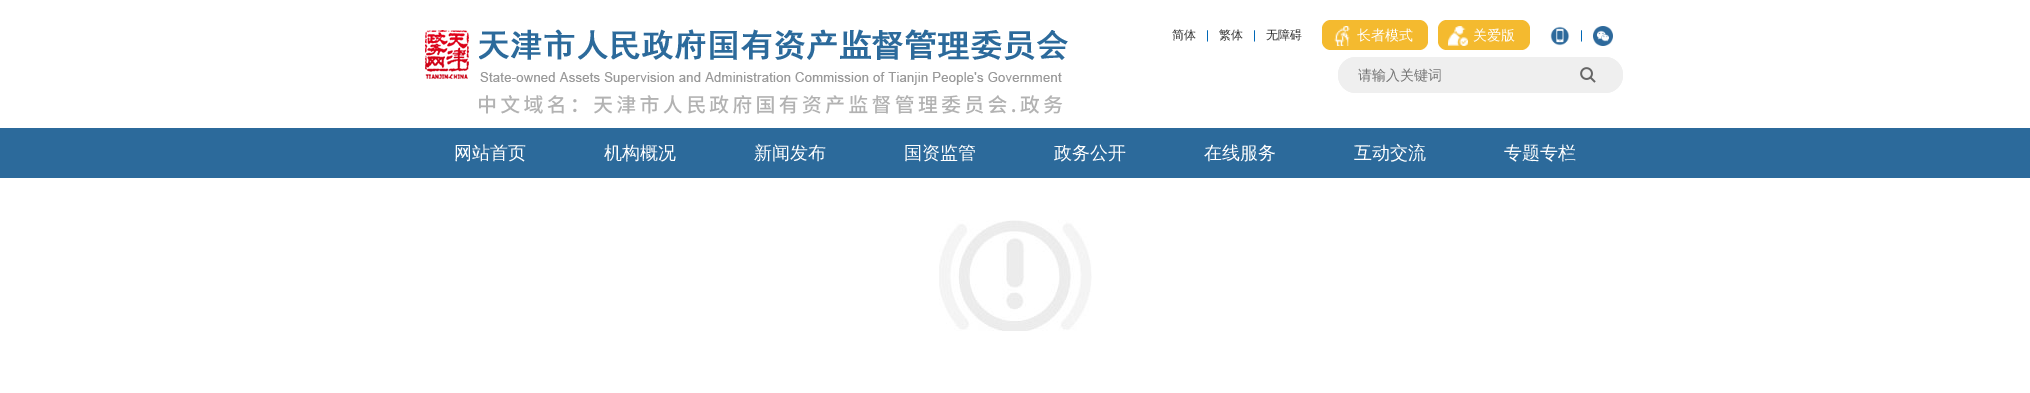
%!PS
<< /PageSize [2030 393] >> setpagedevice
/fl/fill load def
/co { dup -16 bitshift 255 div exch dup -8 bitshift 255 and 255 div exch 255 and 255 div setrgbcolor } def
/fn { [ exch dup neg 0 0 3 -1 roll 0 0 ] selectfont } def
/tx { co fn moveto show } def
/bx { co rectfill } def
/rr { 5 dict begin { /r /h /w /y /x } { exch def } forall
  x r add y moveto x w add y 2 copy h add r arct x w add y h add x 1 index r arct
  x y h add x y r arct x y 2 copy exch w add exch r arct closepath end } def
/im { 5 dict begin { /h /w /y /x /name } { exch def } forall
  gsave x y translate w h scale
  w h 8 [w 0 0 h 0 0] name (r) file false 3 colorimage grestore end } def
0 393 translate 1 -1 scale
4 setmiterlimit
0 0 2030 393 16#FFFFFF bx
(media/1.raw) 425 30 44 49 im
(media/2.raw) 479 29 589 56 im
(media/3.raw) 479 95 584 19 im
16#F4BA2F co
1322 20 106 30 9 rr fl
(media/4.raw) 1334 26 16 20 im
1438 20 92 30 9 rr fl
(media/5.raw) 1448 26 20 20 im
(media/6.raw) 1550 26 20 20 im
(media/7.raw) 1593 26 20 20 im
16#EFEFEF co
1338 57 285 36 18 rr fl
1338 57 215 36 18 rr fl
1553 57 70 36 18 rr fl
(media/8.raw) 1580 67 16 16 im
0 128 2030 50 16#2C6A9B bx
(media/9.raw) 939 220 153 111 im
(简体) 1172 39 /WenQuanYiZenHei-Medium 12 16#333333 tx
(|) 1206 39 /LiberationSans-Regular 12 16#0068B7 tx
(繁体) 1219 39 /WenQuanYiZenHei-Medium 12 16#333333 tx
(|) 1253 39 /LiberationSans-Regular 12 16#0068B7 tx
(无障碍) 1266 39 /WenQuanYiZenHei-Medium 12 16#333333 tx
(长者模式) 1357 40 /WenQuanYiZenHei-Medium 14 16#FFFFFF tx
(关爱版) 1473 40 /WenQuanYiZenHei-Medium 14 16#FFFFFF tx
(|) 1580 39 /LiberationSans-Regular 12 16#0068B7 tx
(请输入关键词) 1358 80 /WenQuanYiZenHei-Medium 14 16#757575 tx
(网站首页) 454 159 /WenQuanYiZenHei-Medium 18 16#FFFFFF tx
(机构概况) 604 159 /WenQuanYiZenHei-Medium 18 16#FFFFFF tx
(新闻发布) 754 159 /WenQuanYiZenHei-Medium 18 16#FFFFFF tx
(国资监管) 904 159 /WenQuanYiZenHei-Medium 18 16#FFFFFF tx
(政务公开) 1054 159 /WenQuanYiZenHei-Medium 18 16#FFFFFF tx
(在线服务) 1204 159 /WenQuanYiZenHei-Medium 18 16#FFFFFF tx
(互动交流) 1354 159 /WenQuanYiZenHei-Medium 18 16#FFFFFF tx
(专题专栏) 1504 159 /WenQuanYiZenHei-Medium 18 16#FFFFFF tx
showpage
